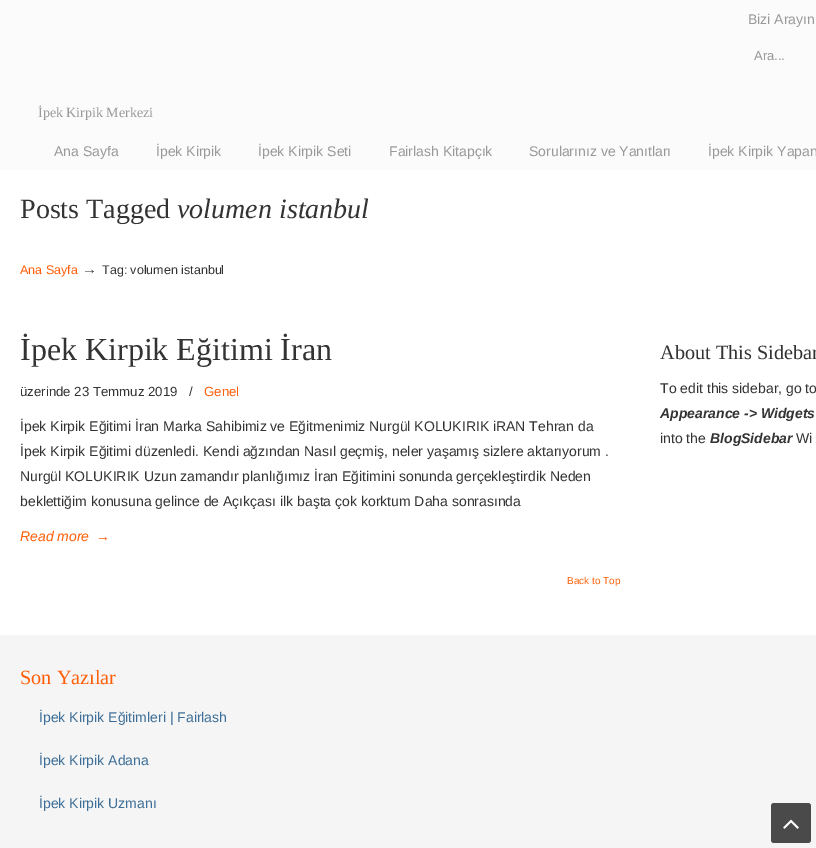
%!PS
<< /PageSize [816 848] >> setpagedevice
/fl/fill load def
/co { dup -16 bitshift 255 div exch dup -8 bitshift 255 and 255 div exch 255 and 255 div setrgbcolor } def
/fn { [ exch dup neg 0 0 3 -1 roll 0 0 ] selectfont } def
/tx { co fn moveto show } def
/bx { co rectfill } def
/rr { 5 dict begin { /r /h /w /y /x } { exch def } forall
  x r add y moveto x w add y 2 copy h add r arct x w add y h add x 1 index r arct
  x y h add x y r arct x y 2 copy exch w add exch r arct closepath end } def
/im { 5 dict begin { /h /w /y /x /name } { exch def } forall
  gsave x y translate w h scale
  w h 8 [w 0 0 h 0 0] name (r) file false 3 colorimage grestore end } def
0 848 translate 1 -1 scale
4 setmiterlimit
0 0 816 848 16#FBFBFB bx
0 170 816 465 16#FFFFFF bx
0 635 816 213 16#F5F5F5 bx
16#4A4A4A co
771 803 40 40 3 rr fl
(media/1.raw) 783 819 16 10 im
(Bizi Arayın) 748 24 /LiberationSans-Regular 14 16#999999 tx
(Ara...) 754 60 /LiberationSans-Regular 13 16#999999 tx
(İpek Kirpik Merkezi) 38 117 /LiberationSerif-Regular 14 16#999999 tx
(Ana Sayfa) 54 156 /LiberationSans-Regular 14 16#999999 tx
(İpek Kirpik) 156 156 /LiberationSans-Regular 14 16#999999 tx
(İpek Kirpik Seti) 258 156 /LiberationSans-Regular 14 16#999999 tx
(Fairlash Kitapçık) 389 156 /LiberationSans-Regular 14 16#999999 tx
(Sorularınız ve Yanıtları) 529 156 /LiberationSans-Regular 14 16#999999 tx
(İpek Kirpik Yapan) 708 156 /LiberationSans-Regular 14 16#999999 tx
(Posts Tagged) 20 218 /LiberationSerif-Regular 28 16#333333 tx
(volumen istanbul) 177 218 /LiberationSerif-Italic 28 16#333333 tx
(Ana Sayfa) 20 274 /LiberationSans-Regular 12.5 16#FE5E08 tx
(→) 82 274 /LiberationSans-Regular 15 16#333333 tx
(Tag: volumen istanbul) 102 274 /LiberationSans-Regular 12.5 16#333333 tx
(İpek Kirpik Eğitimi İran) 20 360 /LiberationSerif-Regular 32 16#333333 tx
(üzerinde 23 Temmuz 2019) 20 396 /LiberationSans-Regular 13.25 16#333333 tx
(/) 189 396 /LiberationSans-Regular 13.25 16#333333 tx
(Genel) 204 396 /LiberationSans-Regular 13.25 16#FE5E08 tx
(İpek Kirpik Eğitimi İran Marka Sahibimiz ve Eğitmenimiz Nurgül KOLUKIRIK iRAN Tehran da) 20 431 /LiberationSans-Regular 14 16#333333 tx
(İpek Kirpik Eğitimi düzenledi. Kendi ağzından Nasıl geçmiş, neler yaşamış sizlere aktarıyorum .) 20 456 /LiberationSans-Regular 14 16#333333 tx
(Nurgül KOLUKIRIK Uzun zamandır planlığımız İran Eğitimini sonunda gerçekleştirdik Neden) 20 481 /LiberationSans-Regular 14 16#333333 tx
(beklettiğim konusuna gelince de Açıkçası ilk başta çok korktum Daha sonrasında) 20 506 /LiberationSans-Regular 14 16#333333 tx
(Read more) 20 541 /LiberationSans-Italic 14 16#FE5E08 tx
(→) 96 541 /LiberationSans-Regular 14 16#FE5E08 tx
(Back to Top) 567 584 /LiberationSans-Regular 10 16#FE5E08 tx
(About This Sidebar) 660 359 /LiberationSerif-Regular 20.25 16#333333 tx
(To edit this sidebar, go to) 660 393 /LiberationSans-Regular 14 16#333333 tx
(Appearance -> Widgets) 660 418 /LiberationSans-BoldItalic 14 16#333333 tx
(into the) 660 443 /LiberationSans-Regular 14 16#333333 tx
(BlogSidebar) 710 443 /LiberationSans-BoldItalic 14 16#333333 tx
(Wi) 796 443 /LiberationSans-Regular 14 16#333333 tx
(Son Yazılar) 20 684 /LiberationSerif-Regular 20.25 16#FE5E08 tx
(İpek Kirpik Eğitimleri | Fairlash) 39 722 /LiberationSans-Regular 14 16#3D6E97 tx
(İpek Kirpik Adana) 39 765 /LiberationSans-Regular 14 16#3D6E97 tx
(İpek Kirpik Uzmanı) 39 808 /LiberationSans-Regular 14 16#3D6E97 tx
showpage
